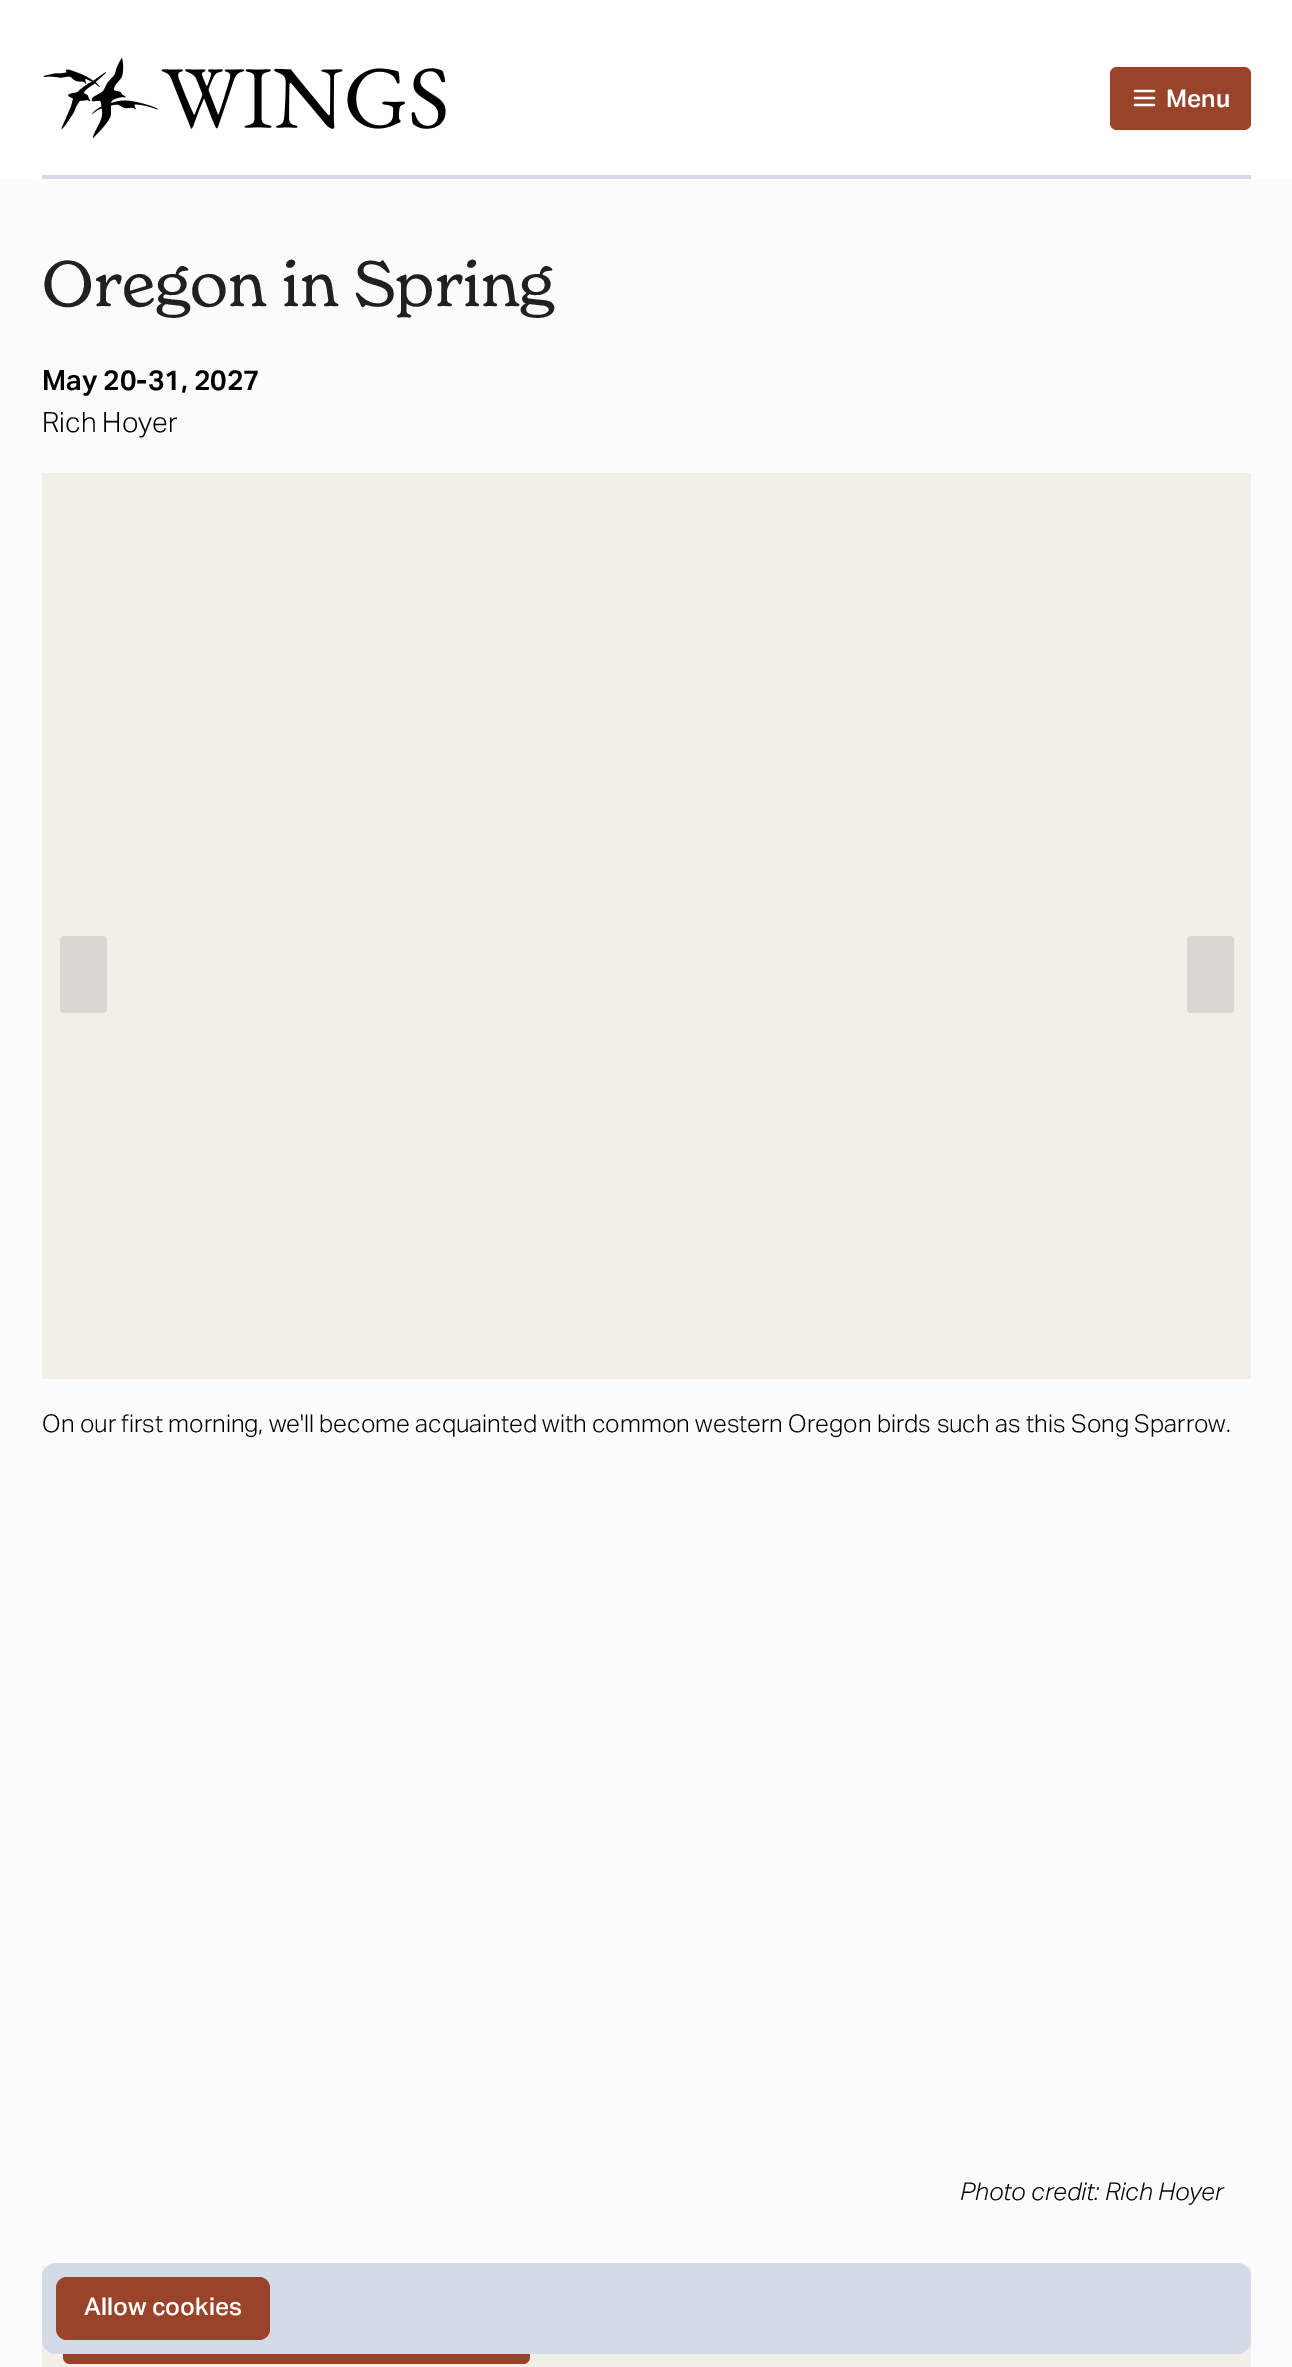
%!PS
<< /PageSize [1292 2367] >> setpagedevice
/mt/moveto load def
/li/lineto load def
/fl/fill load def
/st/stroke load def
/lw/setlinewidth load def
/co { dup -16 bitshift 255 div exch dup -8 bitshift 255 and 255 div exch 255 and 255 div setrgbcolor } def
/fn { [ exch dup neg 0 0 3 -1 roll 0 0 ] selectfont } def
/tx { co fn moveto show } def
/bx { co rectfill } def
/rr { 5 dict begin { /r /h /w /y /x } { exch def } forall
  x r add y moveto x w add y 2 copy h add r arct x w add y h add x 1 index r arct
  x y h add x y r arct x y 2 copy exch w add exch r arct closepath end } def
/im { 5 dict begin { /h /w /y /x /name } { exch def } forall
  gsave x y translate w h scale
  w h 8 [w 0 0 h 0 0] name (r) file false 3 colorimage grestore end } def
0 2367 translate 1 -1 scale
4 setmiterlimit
0 0 1292 2367 16#FBFBFB bx
0 0 1292 179 16#FFFFFF bx
42 175 1209 4 16#D3DCE6 bx
(media/1.raw) 43 58 115 80 im
(media/2.raw) 161 68 285 61 im
16#99432B co
1110 67 141 63 7 rr fl
16#FFFFFF co
2.3 lw
1 setlinecap
1 setlinejoin
1135 91 mt 1154 91 li 1135 98 mt 1154 98 li 1135 105 mt 1154 105 li st
42 473 1209 906 16#F2EFE9 bx
16#DAD7D2 co
60 936 47 77 4 rr fl
1187 936 47 77 4 rr fl
42 2266 1209 101 16#F2EFE9 bx
16#99432B co
63 2287 467 77 7 rr fl
16#D3DCE6 co
42 2263 1209 91 14 rr fl
16#99432B co
56 2277 214 63 11 rr fl
(Menu) 1166 107 /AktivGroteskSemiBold-SemiBold 24.5 16#FFFFFF tx
(Oregon in Spring) 42 306 /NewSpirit-Regular 63 16#1E2022 tx
(May 20-31, 2027) 42 390 /AktivGroteskSemiBold-SemiBold 28 16#000000 tx
(Rich Hoyer) 42 432 /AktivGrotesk-Light 28 16#000000 tx
(On our first morning, we'll become acquainted with common western Oregon birds such as this Song Sparrow.) 42 1432 /AktivGrotesk-Light 24.5 16#000000 tx
(Photo credit: Rich Hoyer) 960 2200 /AktivGrotesk-LightItalic 24.5 16#000000 tx
(Allow cookies) 84 2315 /AktivGrotesk-Medium 24.5 16#FFFFFF tx
showpage
